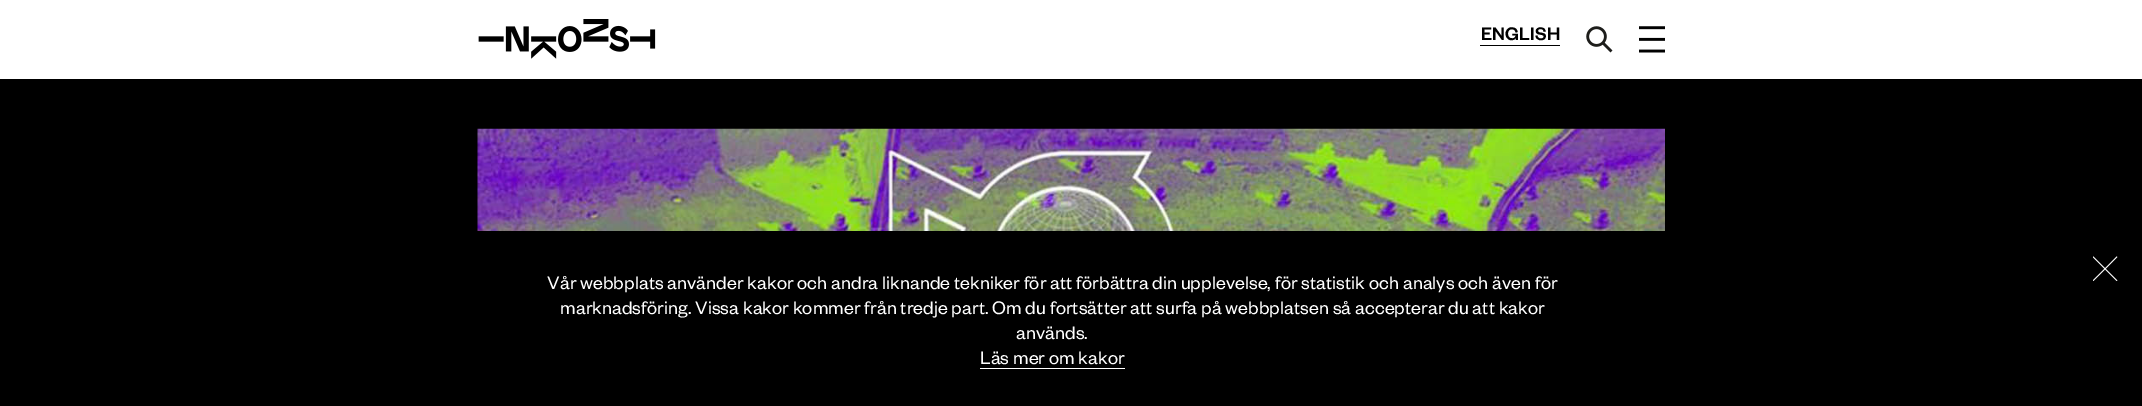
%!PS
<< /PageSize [2142 406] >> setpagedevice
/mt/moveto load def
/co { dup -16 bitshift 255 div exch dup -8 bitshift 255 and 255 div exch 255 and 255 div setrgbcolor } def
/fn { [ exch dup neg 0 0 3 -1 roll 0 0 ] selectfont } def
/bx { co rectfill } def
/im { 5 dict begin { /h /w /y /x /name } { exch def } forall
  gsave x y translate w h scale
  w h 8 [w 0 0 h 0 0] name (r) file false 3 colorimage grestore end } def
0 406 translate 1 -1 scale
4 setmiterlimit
0 0 2142 406 16#000000 bx
0 0 2142 79 16#FFFFFF bx
(media/1.raw) 478 19 178 40 im
1480 45 80 1 16#000000 bx
(media/2.raw) 1586 26 27 27 im
(media/3.raw) 1639 26 26 27 im
(media/4.raw) 477 128 1188 103 im
(media/5.raw) 2093 256 25 25 im
980 368 145 1 16#FFFFFF bx
/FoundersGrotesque-Medium 20 fn
16#000000 co
1481 40 mt .12 0 (ENGLISH) ashow
/FoundersGrotesque-Regular 20 fn
16#FFFFFF co
547 289 mt .12 0 (Vår webbplats använder kakor och andra liknande tekniker för att förbättra din upplevelse, för statistik och analys och även för) ashow
560 314 mt .12 0 (marknadsföring. Vissa kakor kommer från tredje part. Om du fortsätter att surfa på webbplatsen så accepterar du att kakor) ashow
1016 339 mt .12 0 (används.) ashow
980 364 mt .12 0 (Läs mer om kakor) ashow
showpage
